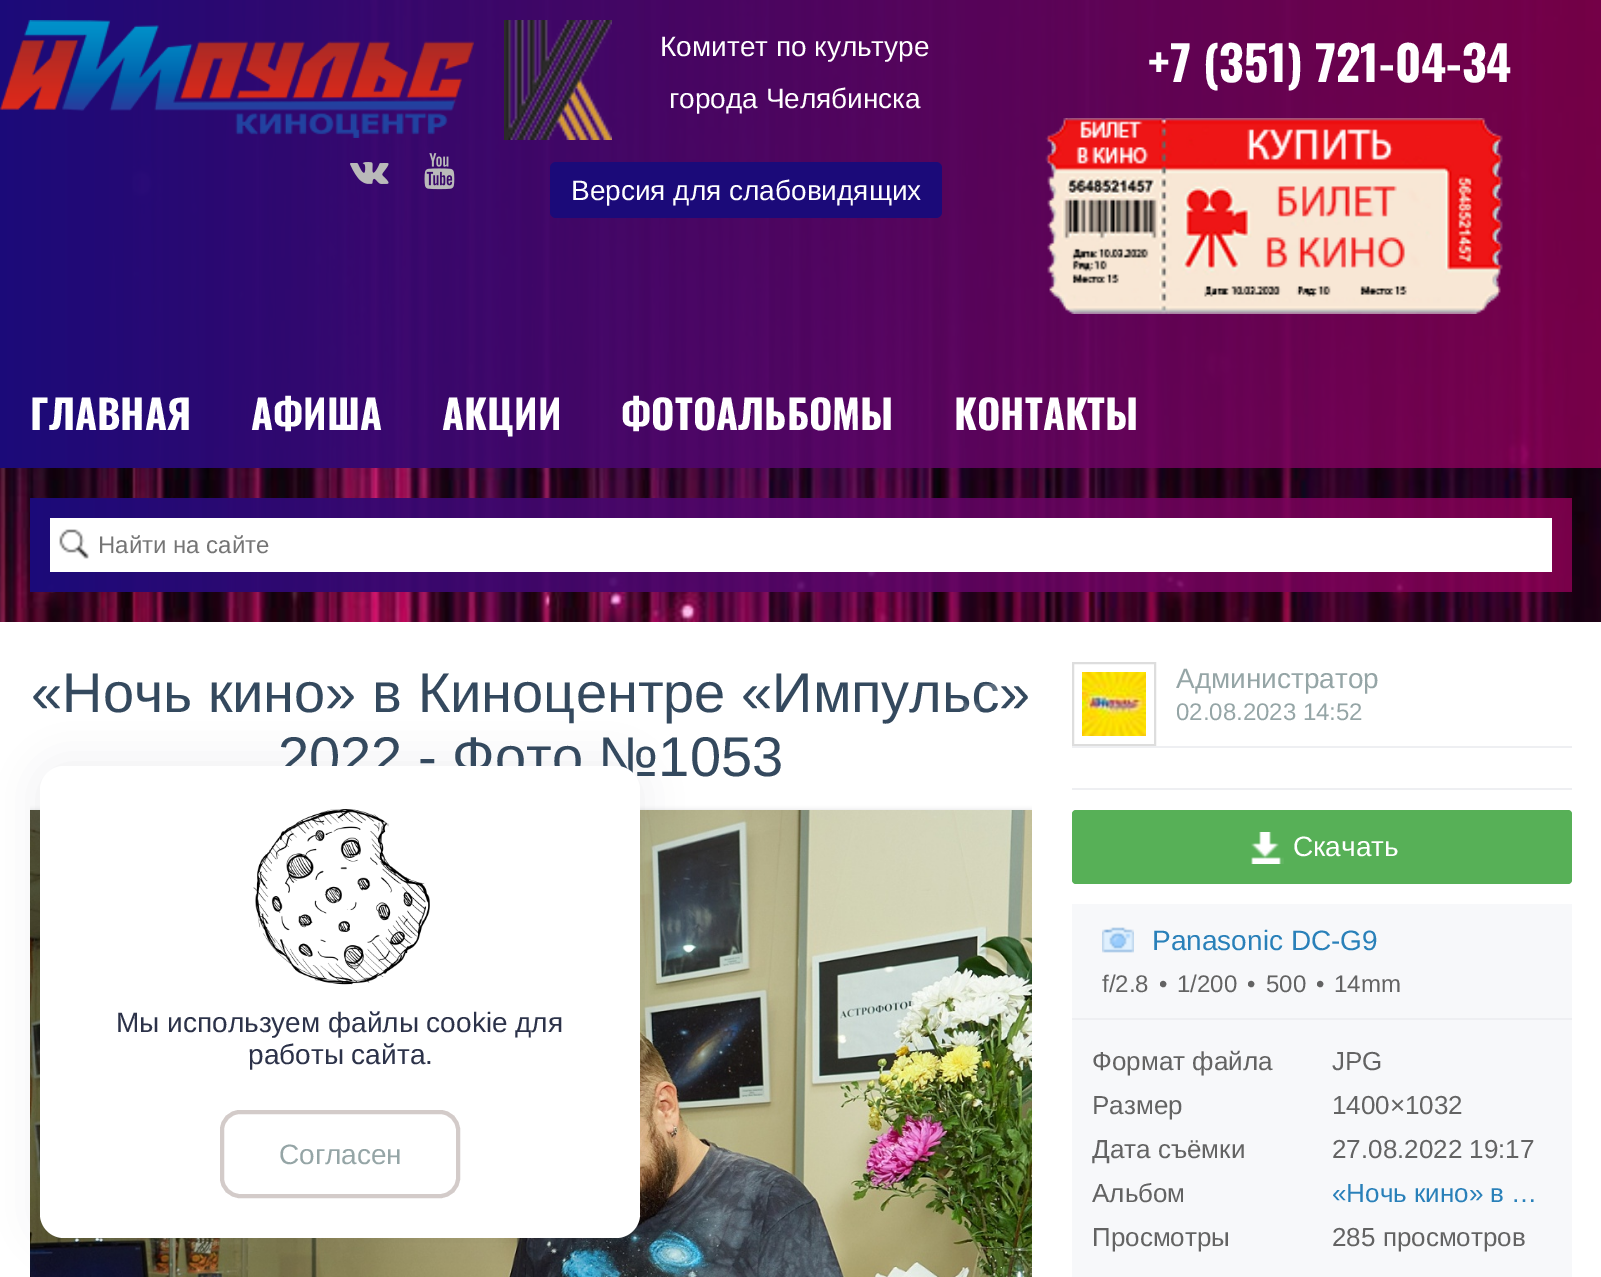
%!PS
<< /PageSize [1601 1277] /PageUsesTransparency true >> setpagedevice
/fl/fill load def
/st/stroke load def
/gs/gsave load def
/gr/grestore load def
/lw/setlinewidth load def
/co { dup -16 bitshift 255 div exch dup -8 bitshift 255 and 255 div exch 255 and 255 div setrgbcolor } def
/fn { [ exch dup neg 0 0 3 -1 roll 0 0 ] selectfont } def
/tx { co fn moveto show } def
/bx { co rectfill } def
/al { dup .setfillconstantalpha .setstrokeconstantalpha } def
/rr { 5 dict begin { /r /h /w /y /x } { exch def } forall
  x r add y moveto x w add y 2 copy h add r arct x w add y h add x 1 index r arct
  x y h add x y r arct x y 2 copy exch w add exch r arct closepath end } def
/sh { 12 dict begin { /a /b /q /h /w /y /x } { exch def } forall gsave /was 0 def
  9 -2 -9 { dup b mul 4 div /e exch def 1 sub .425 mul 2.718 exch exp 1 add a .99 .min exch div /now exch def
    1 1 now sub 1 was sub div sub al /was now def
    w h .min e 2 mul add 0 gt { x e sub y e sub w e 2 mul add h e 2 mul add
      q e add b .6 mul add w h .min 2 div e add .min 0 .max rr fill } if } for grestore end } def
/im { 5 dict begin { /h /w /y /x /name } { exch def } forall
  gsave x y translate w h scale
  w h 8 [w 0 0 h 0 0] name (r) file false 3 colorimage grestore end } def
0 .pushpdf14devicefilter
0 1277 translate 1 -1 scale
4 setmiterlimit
0 0 1601 1277 16#FFFFFF bx
(media/1.raw) 0 0 1601 622 im
(media/2.raw) 0 20 474 118 im
(media/3.raw) 350 162 39 22 im
(media/4.raw) 424 153 31 37 im
(media/5.raw) 504 20 108 120 im
16#1B0A79 co
550 162 392 56 6 rr fl
(media/6.raw) 1045 118 458 196 im
50 518 1502 54 16#FFFFFF bx
(media/7.raw) 59 529 30 30 im
gs
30 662 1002 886 rectclip
16#00001E co
30 812 1002 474 0 3 .3 sh
gr
(media/9.raw) 30 810 1002 467 im
16#DDDDDD co
2 lw
1073 663 82 82 rectstroke
(media/10.raw) 1082 672 64 64 im
1072 746 500 2 16#EEEFF2 bx
1072 788 500 2 16#EEEFF2 bx
16#57B057 co
1072 810 500 74 4 rr fl
(media/11.raw) 1251 832 33 32 im
1072 904 500 114 16#F7F8FA bx
1072 1018 500 2 16#EEEFF2 bx
(media/12.raw) 1102 927 32 26 im
1072 1020 500 257 16#F7F8FA bx
16#2C3249 co
40 766 600 472 24 20 .08 sh
(Комитет по культуре) 660 56 /LiberationSans-Regular 28 16#FFFFFF tx
(города Челябинска) 669 108 /LiberationSans-Regular 28 16#FFFFFF tx
(Версия для слабовидящих) 571 200 /LiberationSans-Regular 28 16#FFFFFF tx
(+7 \(351\) 721-04-34) 1148 82 /Oswald-Bold 48 16#FFFFFF tx
(ГЛАВНАЯ) 30 430 /Oswald-Bold 40 16#FFFFFF tx
(АФИША) 251 430 /Oswald-Bold 40 16#FFFFFF tx
(АКЦИИ) 442 430 /Oswald-Bold 40 16#FFFFFF tx
(ФОТОАЛЬБОМЫ) 621 430 /Oswald-Bold 40 16#FFFFFF tx
(КОНТАКТЫ) 954 430 /Oswald-Bold 40 16#FFFFFF tx
(Найти на сайте) 98 553 /LiberationSans-Regular 24 16#757575 tx
(«Ночь кино» в Киноцентре «Импульс») 31 712 /LiberationSans-Regular 56 16#34495E tx
(2022 - Фото №1053) 278 776 /LiberationSans-Regular 56 16#34495E tx
(media/8.raw) 964 684 34 27 im
(Администратор) 1176 688 /LiberationSans-Regular 28 16#95A5A6 tx
(02.08.2023 14:52) 1176 720 /LiberationSans-Regular 24 16#95A5A6 tx
(Скачать) 1293 856 /LiberationSans-Regular 28 16#FFFFFF tx
(Panasonic DC-G9) 1152 950 /LiberationSans-Regular 28 16#2980B9 tx
(f/2.8) 1102 992 /LiberationSans-Regular 24 16#636363 tx
(•) 1159 992 /LiberationSans-Regular 24 16#636363 tx
(1/200) 1177 992 /LiberationSans-Regular 24 16#636363 tx
(•) 1247 992 /LiberationSans-Regular 24 16#636363 tx
(500) 1266 992 /LiberationSans-Regular 24 16#636363 tx
(•) 1316 992 /LiberationSans-Regular 24 16#636363 tx
(14mm) 1334 992 /LiberationSans-Regular 24 16#636363 tx
(Формат файла) 1092 1070 /LiberationSans-Regular 26 16#636363 tx
(JPG) 1332 1070 /LiberationSans-Regular 26 16#636363 tx
(Размер) 1092 1114 /LiberationSans-Regular 26 16#636363 tx
(1400×1032) 1332 1114 /LiberationSans-Regular 26 16#636363 tx
(Дата съёмки) 1092 1158 /LiberationSans-Regular 26 16#636363 tx
(27.08.2022 19:17) 1332 1158 /LiberationSans-Regular 26 16#636363 tx
(Альбом) 1092 1202 /LiberationSans-Regular 26 16#636363 tx
(«Ночь кино» в …) 1332 1202 /LiberationSans-Regular 26 16#2980B9 tx
(Просмотры) 1092 1246 /LiberationSans-Regular 26 16#636363 tx
(285 просмотров) 1332 1246 /LiberationSans-Regular 26 16#636363 tx
16#FFFFFF co
40 766 600 472 24 rr fl
(media/13.raw) 253 809 177 176 im
(Мы используем файлы cookie для) 116 1032 /LiberationSans-Regular 28 16#2C3249 tx
(работы сайта.) 248 1064 /LiberationSans-Regular 28 16#2C3249 tx
16#D3CBC9 co
4 lw
222 1112 236 84 18 rr st
(Согласен) 279 1164 /LiberationSans-Regular 28 16#95A5A6 tx
.poppdf14devicefilter showpage
